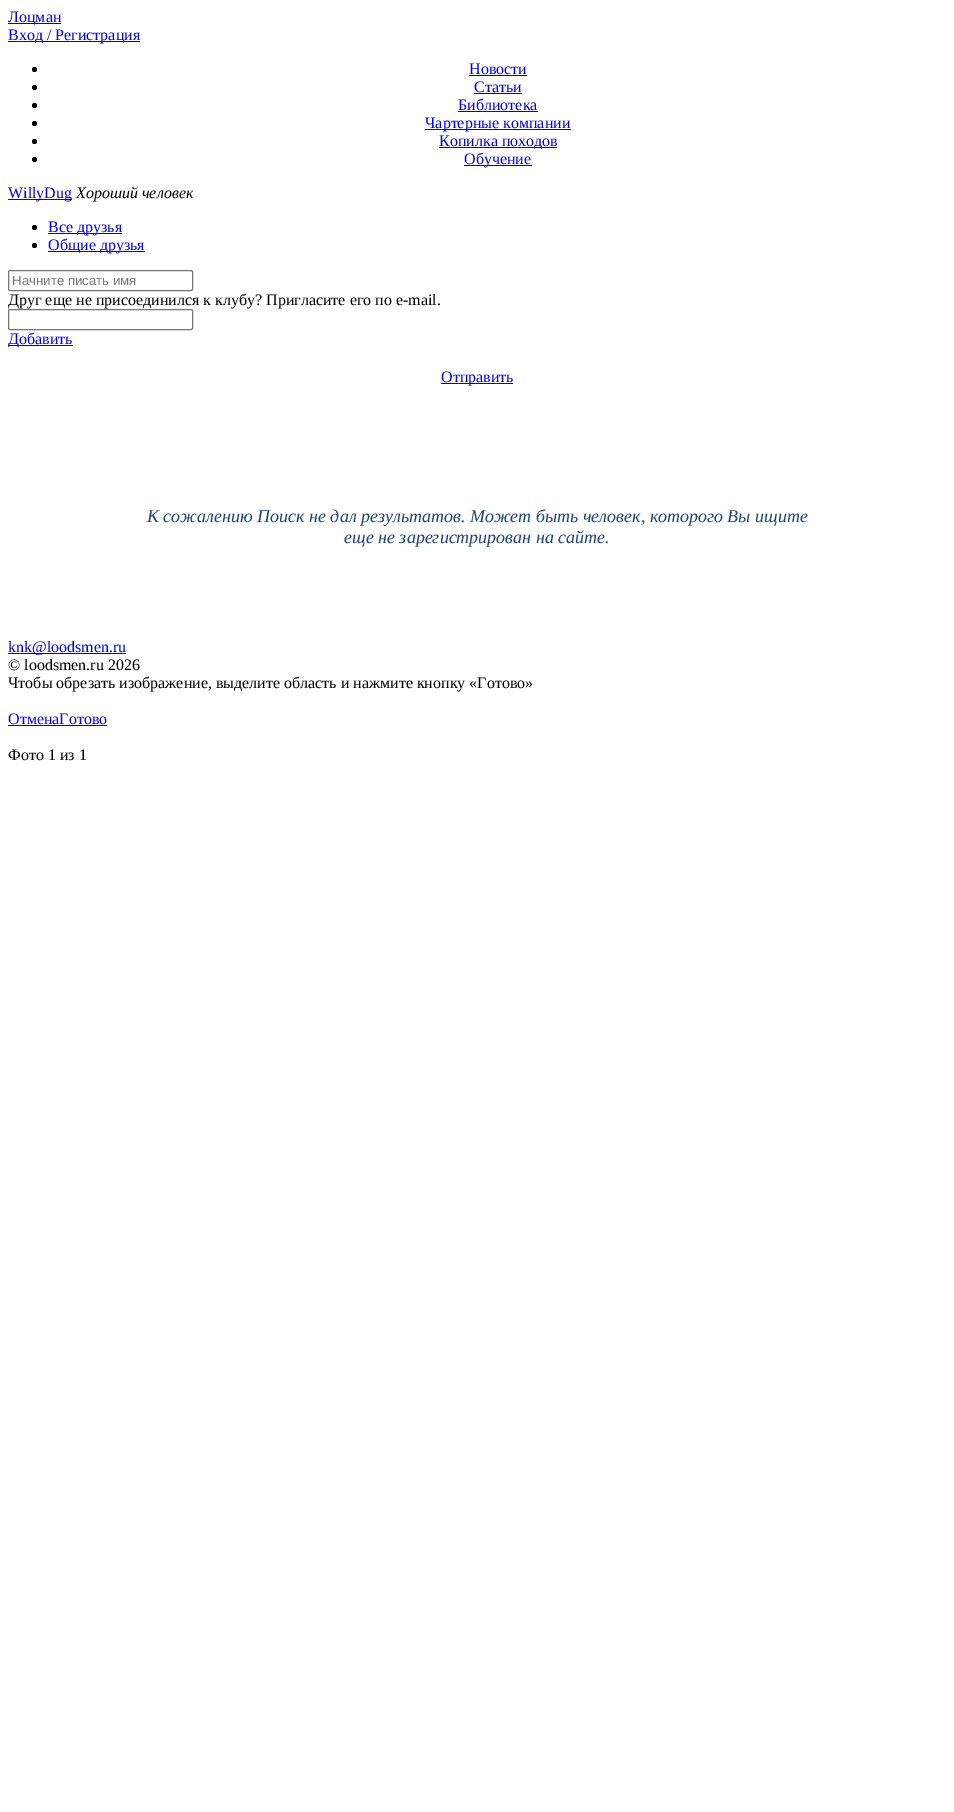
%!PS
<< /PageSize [954 1812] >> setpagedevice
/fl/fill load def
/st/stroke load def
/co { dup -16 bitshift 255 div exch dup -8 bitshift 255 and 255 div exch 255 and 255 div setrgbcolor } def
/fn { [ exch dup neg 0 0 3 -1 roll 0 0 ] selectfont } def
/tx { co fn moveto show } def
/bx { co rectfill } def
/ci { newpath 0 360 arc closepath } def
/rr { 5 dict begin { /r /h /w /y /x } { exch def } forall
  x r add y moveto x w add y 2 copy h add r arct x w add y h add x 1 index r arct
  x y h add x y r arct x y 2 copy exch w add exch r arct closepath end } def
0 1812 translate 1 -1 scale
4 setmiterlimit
0 0 954 1812 16#FFFFFF bx
8 23 53 1 16#0000EE bx
8 41 132 1 16#0000EE bx
16#000000 co
34.5 69.5 2.5 ci fl
469 75 58 1 16#0000EE bx
16#000000 co
34.5 87.5 2.5 ci fl
474 93 48 1 16#0000EE bx
16#000000 co
34.5 105.5 2.5 ci fl
458 111 80 1 16#0000EE bx
16#000000 co
34.5 123.5 2.5 ci fl
425 129 146 1 16#0000EE bx
16#000000 co
34.5 141.5 2.5 ci fl
439 147 118 1 16#0000EE bx
16#000000 co
34.5 159.5 2.5 ci fl
464 165 68 1 16#0000EE bx
8 199 64 1 16#0000EE bx
16#000000 co
34.5 227.5 2.5 ci fl
48 233 74 1 16#0000EE bx
16#000000 co
34.5 245.5 2.5 ci fl
48 251 97 1 16#0000EE bx
16#767676 co
8.5 270.5 184 20 1.5 rr st
8.5 309.5 184 20 1.5 rr st
8 345 65 1 16#0000EE bx
441 383 72 1 16#0000EE bx
8 653 118 1 16#0000EE bx
8 725 99 1 16#0000EE bx
(Лоцман) 8 22 /LiberationSerif-Regular 16 16#0000EE tx
(Вход / Регистрация) 8 40 /LiberationSerif-Regular 16 16#0000EE tx
(Новости) 469 74 /LiberationSerif-Regular 16 16#0000EE tx
(Статьи) 474 92 /LiberationSerif-Regular 16 16#0000EE tx
(Библиотека) 458 110 /LiberationSerif-Regular 16 16#0000EE tx
(Чартерные компании) 425 128 /LiberationSerif-Regular 16 16#0000EE tx
(Копилка походов) 439 146 /LiberationSerif-Regular 16 16#0000EE tx
(Обучение) 464 164 /LiberationSerif-Regular 16 16#0000EE tx
(WillyDug) 8 198 /LiberationSerif-Regular 16 16#0000EE tx
(Хороший человек) 76 198 /LiberationSerif-Italic 16 16#000000 tx
(Все друзья) 48 232 /LiberationSerif-Regular 16 16#0000EE tx
(Общие друзья) 48 250 /LiberationSerif-Regular 16 16#0000EE tx
(Начните писать имя) 12 285 /LiberationSans-Regular 13.25 16#757575 tx
(Друг еще не присоединился к клубу? Пригласите его по e-mail.) 8 305 /LiberationSerif-Regular 16 16#000000 tx
(Добавить) 8 344 /LiberationSerif-Regular 16 16#0000EE tx
(Отправить) 441 382 /LiberationSerif-Regular 16 16#0000EE tx
(К сожалению Поиск не дал результатов. Может быть человек, которого Вы ищите) 147 522 /LiberationSerif-Italic 18 16#1E4573 tx
(еще не зарегистрирован на сайте.) 344 543 /LiberationSerif-Italic 18 16#1E4573 tx
(knk@loodsmen.ru) 8 652 /LiberationSerif-Regular 16 16#0000EE tx
(© loodsmen.ru 2026) 8 670 /LiberationSerif-Regular 16 16#000000 tx
(Чтобы обрезать изображение, выделите область и нажмите кнопку «Готово») 8 688 /LiberationSerif-Regular 16 16#000000 tx
(ОтменаГотово) 8 724 /LiberationSerif-Regular 16 16#0000EE tx
(Фото 1 из 1) 8 760 /LiberationSerif-Regular 16 16#000000 tx
showpage
